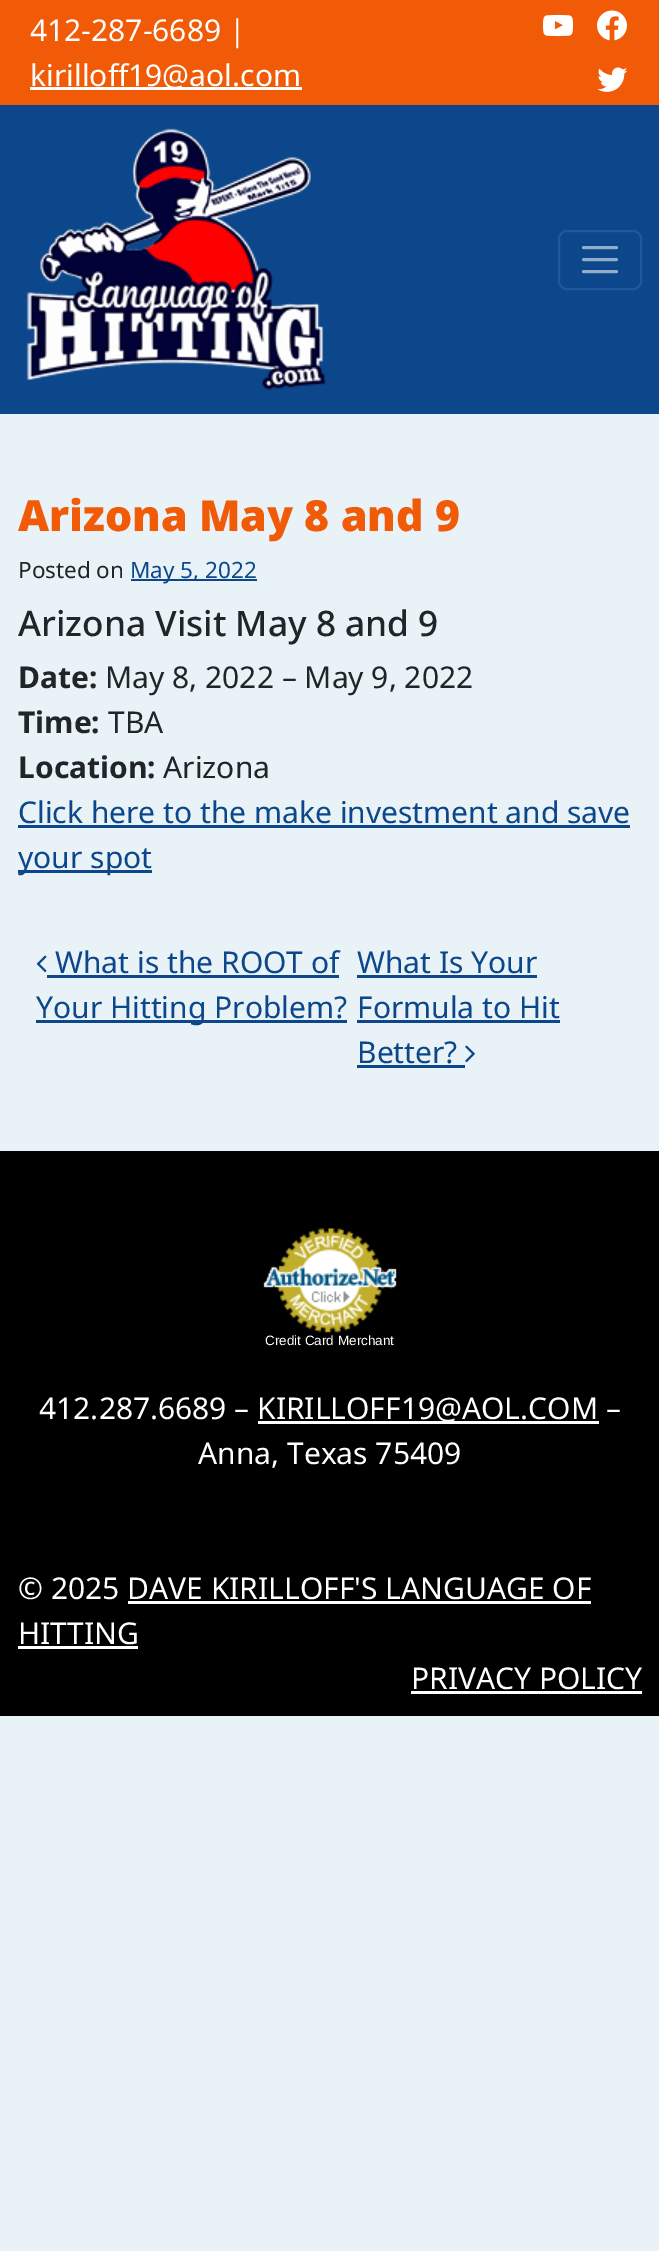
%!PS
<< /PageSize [659 2251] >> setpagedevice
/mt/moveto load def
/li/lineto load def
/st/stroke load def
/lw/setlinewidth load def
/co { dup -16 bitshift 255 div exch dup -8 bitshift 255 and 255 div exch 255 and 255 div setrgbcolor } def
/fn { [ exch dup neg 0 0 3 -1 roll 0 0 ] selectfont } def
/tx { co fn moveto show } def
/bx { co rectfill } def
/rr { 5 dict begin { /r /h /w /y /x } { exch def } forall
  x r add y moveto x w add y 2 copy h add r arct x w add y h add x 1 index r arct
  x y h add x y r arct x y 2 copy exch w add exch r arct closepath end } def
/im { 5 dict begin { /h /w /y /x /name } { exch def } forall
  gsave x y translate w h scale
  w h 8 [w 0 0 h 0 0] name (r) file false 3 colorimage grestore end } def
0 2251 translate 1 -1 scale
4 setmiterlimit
0 0 659 2251 16#E9F2F6 bx
0 0 659 105 16#F15B07 bx
30 87 272 3 16#FFFFFF bx
(media/1.raw) 543 14 30 23 im
(media/2.raw) 597 10 30 31 im
(media/3.raw) 597 67 31 25 im
0 105 659 309 16#0B478A bx
(media/4.raw) 26 128 301 263 im
16#235996 co
2 lw
559 231 82 58 8 rr st
16#91ACCA co
3 lw
1 setlinecap
583.5 247.5 mt 616.5 247.5 li 583.5 259.5 mt 616.5 259.5 li 583.5 271.5 mt 616.5 271.5 li st
131 579 126 2 16#0B478A bx
18 825 612 3 16#0B478A bx
18 870 134 3 16#0B478A bx
(media/5.raw) 36 955 11 18 im
47 975 292 3 16#0B478A bx
36 1020 311 3 16#0B478A bx
357 975 180 3 16#0B478A bx
357 1020 203 3 16#0B478A bx
357 1065 108 3 16#0B478A bx
(media/6.raw) 465 1045 10 18 im
0 1151 659 565 16#000000 bx
(media/7.raw) 263 1228 134 105 im
258 1421 341 3 16#FFFFFF bx
128 1601 463 3 16#FFFFFF bx
18 1646 120 3 16#FFFFFF bx
411 1691 231 3 16#FFFFFF bx
(412-287-6689 |) 30 41 /NotoSans-Regular 30 16#FFFFFF tx
(kirilloff19@aol.com) 30 86 /NotoSans-Regular 30 16#FFFFFF tx
(Arizona May 8 and 9) 18 531 /NotoSans-Black 42.9 16#F15B07 tx
(Posted on) 18 578 /NotoSans-Regular 22.5 16#212529 tx
(May 5, 2022) 130 578 /NotoSans-Regular 22.5 16#0B478A tx
(Arizona Visit May 8 and 9) 18 636 /NotoSans-Medium 35.2 16#212529 tx
(Date:) 18 688 /NotoSans-Bold 30 16#212529 tx
(May 8, 2022 – May 9, 2022) 105 688 /NotoSans-Regular 30 16#212529 tx
(Time:) 18 733 /NotoSans-Bold 30 16#212529 tx
(TBA) 108 733 /NotoSans-Regular 30 16#212529 tx
(Location:) 18 778 /NotoSans-Bold 30 16#212529 tx
(Arizona) 163 778 /NotoSans-Regular 30 16#212529 tx
(Click here to the make investment and save) 18 823 /NotoSans-Regular 30 16#0B478A tx
(your spot) 18 868 /NotoSans-Regular 30 16#0B478A tx
(What is the ROOT of) 55 973 /NotoSans-Regular 30 16#0B478A tx
(Your Hitting Problem?) 36 1018 /NotoSans-Regular 30 16#0B478A tx
(What Is Your) 357 973 /NotoSans-Regular 30 16#0B478A tx
(Formula to Hit) 357 1018 /NotoSans-Regular 30 16#0B478A tx
(Better?) 357 1063 /NotoSans-Regular 30 16#0B478A tx
(Credit Card Merchant) 265 1345 /LiberationSans-Regular 13.5 16#FFFFFF tx
(412.287.6689 –) 39 1419 /NotoSans-Regular 30 16#FFFFFF tx
(KIRILLOFF19@AOL.COM –) 257 1419 /NotoSans-Regular 30 16#FFFFFF tx
(Anna, Texas 75409) 198 1464 /NotoSans-Regular 30 16#FFFFFF tx
(© 2025 DAVE KIRILLOFF'S LANGUAGE OF) 18 1599 /NotoSans-Regular 30 16#FFFFFF tx
(HITTING) 18 1644 /NotoSans-Regular 30 16#FFFFFF tx
(PRIVACY POLICY) 411 1689 /NotoSans-Regular 30 16#FFFFFF tx
showpage
